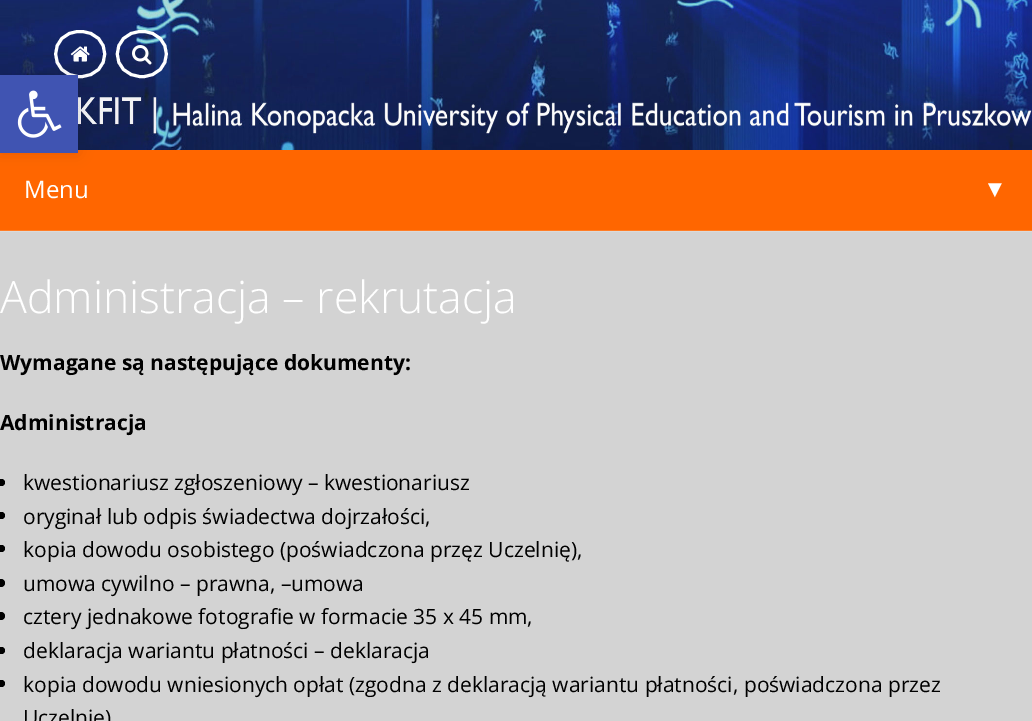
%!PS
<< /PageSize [1032 721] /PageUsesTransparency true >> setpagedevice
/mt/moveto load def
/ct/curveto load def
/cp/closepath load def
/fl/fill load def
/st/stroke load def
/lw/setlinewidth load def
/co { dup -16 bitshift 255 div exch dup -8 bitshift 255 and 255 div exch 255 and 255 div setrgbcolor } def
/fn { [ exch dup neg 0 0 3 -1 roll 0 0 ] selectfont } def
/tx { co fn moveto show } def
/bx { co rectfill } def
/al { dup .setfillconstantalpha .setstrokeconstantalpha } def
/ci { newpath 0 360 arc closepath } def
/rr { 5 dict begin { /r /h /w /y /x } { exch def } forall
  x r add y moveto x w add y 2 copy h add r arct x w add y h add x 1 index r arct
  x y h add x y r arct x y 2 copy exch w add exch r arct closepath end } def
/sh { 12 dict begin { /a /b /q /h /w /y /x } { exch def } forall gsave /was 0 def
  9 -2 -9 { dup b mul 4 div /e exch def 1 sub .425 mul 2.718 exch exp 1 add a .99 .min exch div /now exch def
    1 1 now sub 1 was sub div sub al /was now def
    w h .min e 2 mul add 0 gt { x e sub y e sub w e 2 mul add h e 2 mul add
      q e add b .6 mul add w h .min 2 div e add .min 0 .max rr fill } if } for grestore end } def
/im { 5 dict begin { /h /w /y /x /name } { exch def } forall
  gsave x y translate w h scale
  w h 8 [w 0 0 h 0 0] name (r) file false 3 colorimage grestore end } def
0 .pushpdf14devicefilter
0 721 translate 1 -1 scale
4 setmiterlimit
0 0 1032 721 16#D3D3D3 bx
0 231 1032 1 16#DADADA bx
(media/2.raw) 0 0 1032 150 im
16#FFFFFF co
3 lw
80 31.5 mt 113 31.5 113 76.5 80 76.5 ct 47.5 76.5 47.5 31.5 80 31.5 ct cp st
(media/3.raw) 70 46 20 16 im
0 150 1032 80 16#FF6600 bx
16#000000 co
0 75 78 78 0 7.5 .1 sh
0 75 78 78 16#4054B2 bx
(media/1.raw) 17 90 45 48 im
16#FFFFFF co
142 31.5 mt 174.5 31.5 174.5 76.5 142 76.5 ct 109 76.5 109 31.5 142 31.5 ct cp st
(media/4.raw) 132 45 20 20 im
0 230 1032 1 16#FF7D26 bx
16#000000 co
-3 479 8 7 3.5 rr fl
-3 512 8 7 3.5 rr fl
-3 545 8 7 3.5 rr fl
1 583 4 ci fl
1 616 4 ci fl
-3 647 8 7 3.5 rr fl
-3 680 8 7 3.5 rr fl
(Menu) 24 198 /OpenSans-Regular 24 16#FFFFFF tx
(▼) 983 197 /LiberationSans-Italic 24 16#FFFFFF tx
(Administracja – rekrutacja) 0 313 /OpenSans-Light 44.6 16#FFFFFF tx
(Wymagane są następujące dokumenty:) 0 370 /OpenSans-Bold 21 16#000000 tx
(Administracja) 0 430 /OpenSans-Bold 21 16#000000 tx
(kwestionariusz zgłoszeniowy – kwestionariusz) 23 490 /OpenSans-Regular 21 16#000000 tx
(oryginał lub odpis świadectwa dojrzałości,) 23 524 /OpenSans-Regular 21 16#000000 tx
(kopia dowodu osobistego \(poświadczona przęz Uczelnię\),) 23 557 /OpenSans-Regular 21 16#000000 tx
(umowa cywilno – prawna, –umowa) 23 591 /OpenSans-Regular 21 16#000000 tx
(cztery jednakowe fotografie w formacie 35 x 45 mm,) 23 624 /OpenSans-Regular 21 16#000000 tx
(deklaracja wariantu płatności – deklaracja) 23 658 /OpenSans-Regular 21 16#000000 tx
(kopia dowodu wniesionych opłat \(zgodna z deklaracją wariantu płatności, poświadczona przez) 23 692 /OpenSans-Regular 21 16#000000 tx
(Uczelnię\)) 23 725 /OpenSans-Regular 21 16#000000 tx
.poppdf14devicefilter showpage
